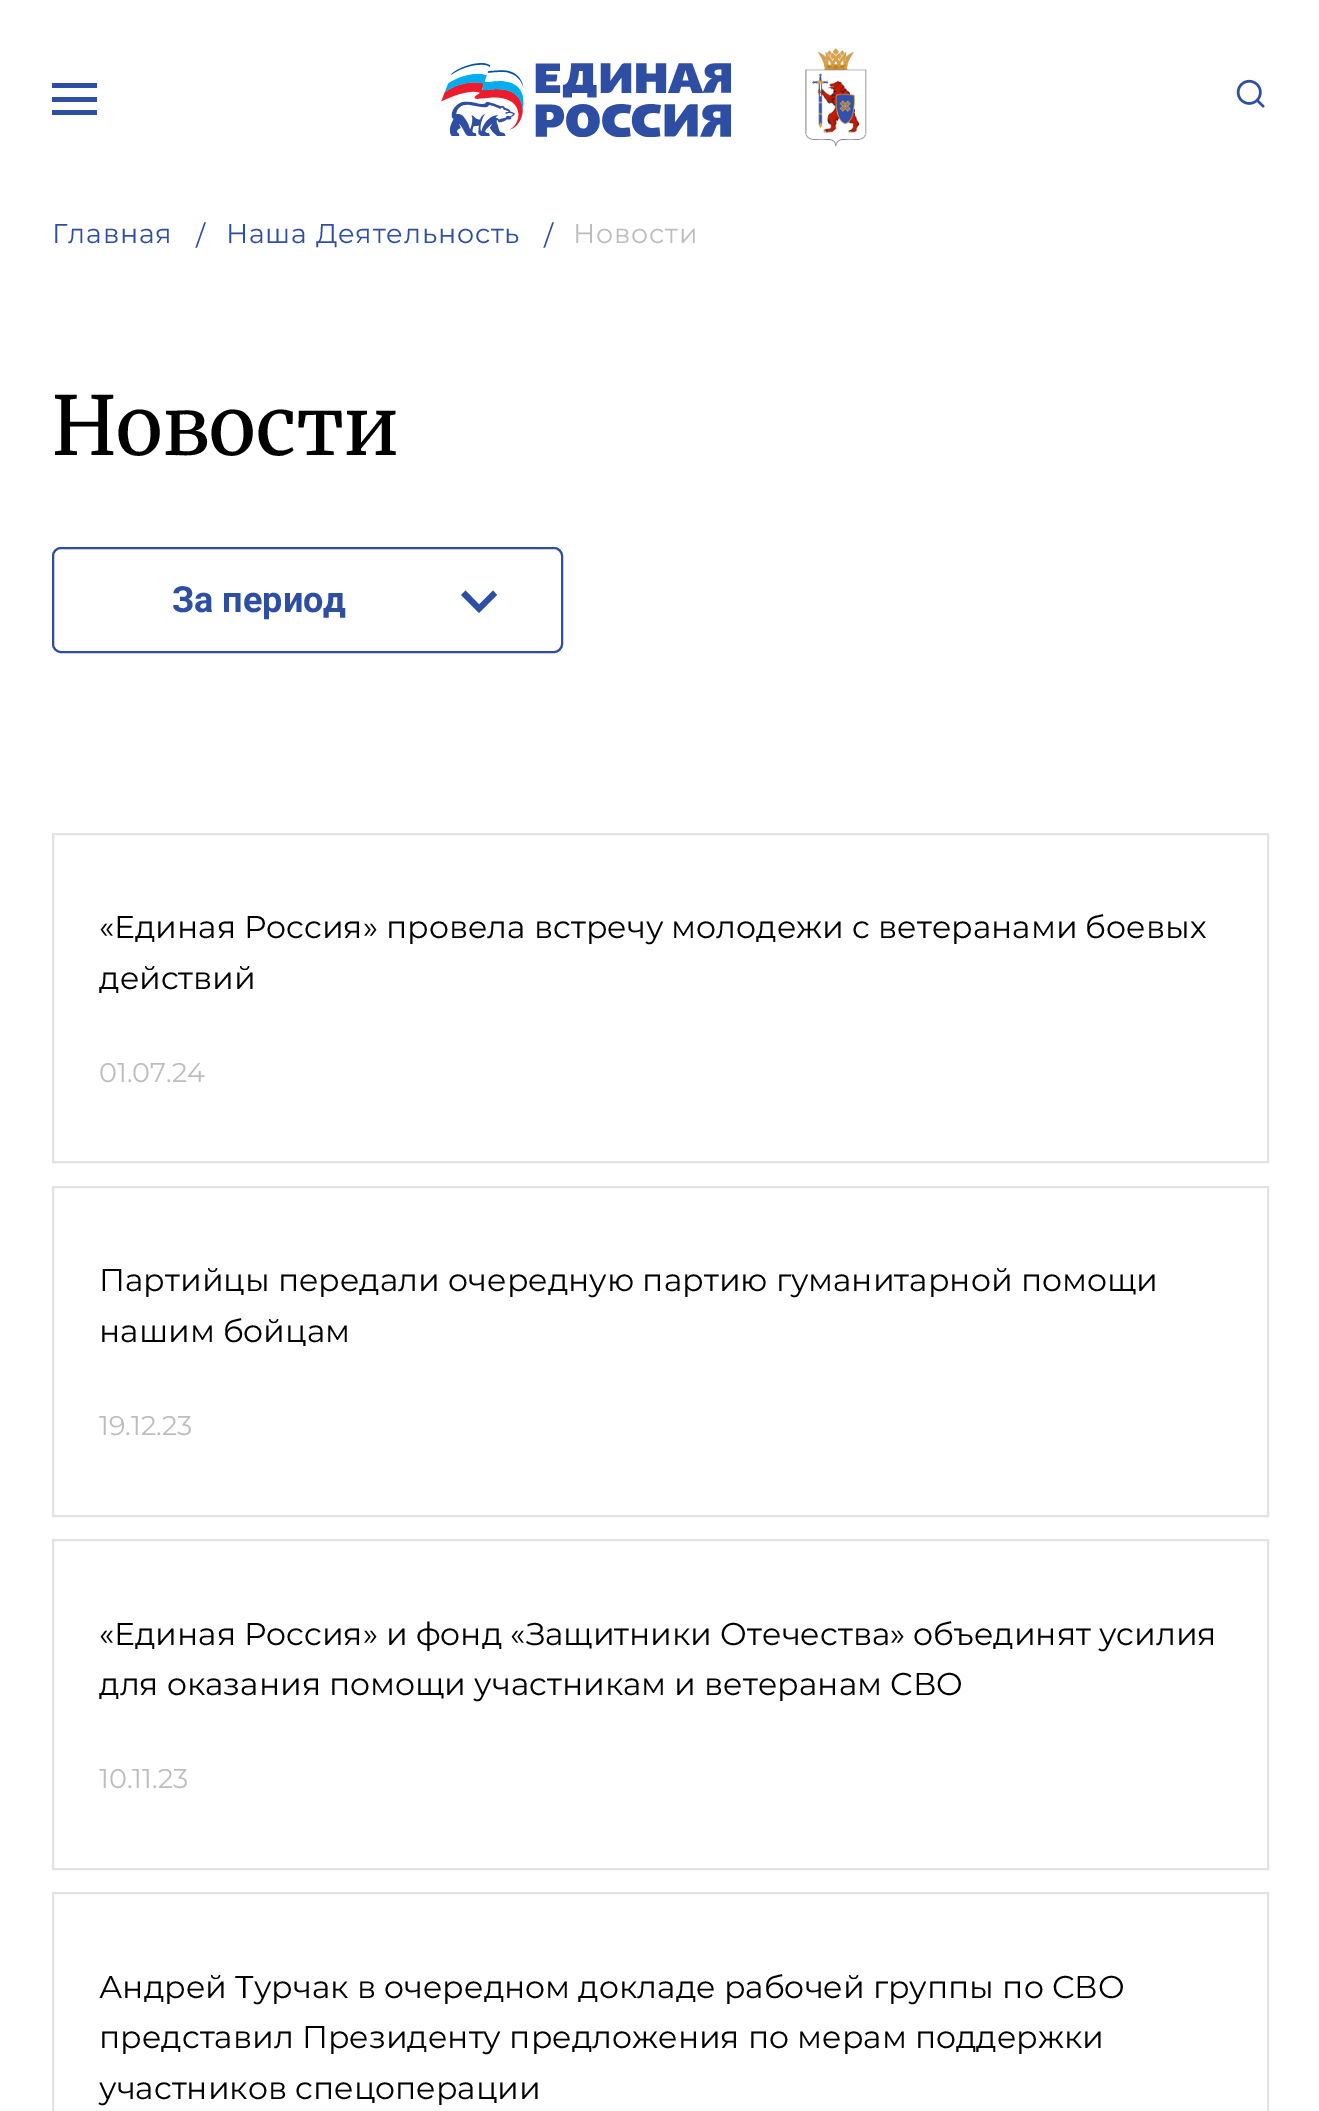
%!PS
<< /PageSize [1319 2111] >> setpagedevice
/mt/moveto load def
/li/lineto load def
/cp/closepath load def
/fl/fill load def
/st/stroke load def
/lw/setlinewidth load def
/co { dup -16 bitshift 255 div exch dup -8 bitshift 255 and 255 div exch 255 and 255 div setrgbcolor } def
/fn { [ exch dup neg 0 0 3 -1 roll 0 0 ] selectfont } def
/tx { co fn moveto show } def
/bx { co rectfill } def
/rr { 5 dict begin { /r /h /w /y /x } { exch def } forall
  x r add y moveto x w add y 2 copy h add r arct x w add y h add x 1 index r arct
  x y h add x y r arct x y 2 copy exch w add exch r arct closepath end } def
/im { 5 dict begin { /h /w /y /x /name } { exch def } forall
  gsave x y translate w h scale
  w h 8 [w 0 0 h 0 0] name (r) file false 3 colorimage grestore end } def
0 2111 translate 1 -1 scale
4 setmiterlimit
0 0 1319 2111 16#FFFFFF bx
52 83 45 5 16#2E4EA4 bx
52 97 45 5 16#2E4EA4 bx
52 110 45 5 16#2E4EA4 bx
(media/1.raw) 441 63 290 74 im
(media/2.raw) 805 48 62 99 im
(media/3.raw) 1236 79 29 29 im
2 lw
53 548 509 104 8 rr st
493 590.5 mt 479 604.5 li 465.5 590.5 li 461 595 li 479 613 li 497 595 li cp fl
16#E3E3E3 co
53 834 1215 328 rectstroke
53 1187 1215 329 rectstroke
53 1540 1215 329 rectstroke
53 1893 1215 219 rectstroke
/Montserrat-Regular 27 fn
16#2E4EA4 co
52 243 mt .8 0 (Главная) ashow
196 245 mt .8 0 (/) ashow
226 243 mt .8 0 (Наша Деятельность) ashow
544 245 mt .8 0 (/) ashow
16#BDBDBD co
573 243 mt .8 0 (Новости) ashow
(Новости) 52 455 /Merriweather-Regular 81 16#000000 tx
(За период) 172 612 /Roboto-Bold 36 16#2E4EA4 tx
(«Единая Россия» провела встречу молодежи с ветеранами боевых) 99 938 /Montserrat-Regular 31.5 16#000000 tx
(действий) 99 989 /Montserrat-Regular 31.5 16#000000 tx
(01.07.24) 99 1082 /Montserrat-Regular 27 16#BDBDBD tx
(Партийцы передали очередную партию гуманитарной помощи) 99 1291 /Montserrat-Regular 31.5 16#000000 tx
(нашим бойцам) 99 1342 /Montserrat-Regular 31.5 16#000000 tx
(19.12.23) 99 1435 /Montserrat-Regular 27 16#BDBDBD tx
(«Единая Россия» и фонд «Защитники Отечества» объединят усилия) 99 1645 /Montserrat-Regular 31.5 16#000000 tx
(для оказания помощи участникам и ветеранам СВО) 99 1695 /Montserrat-Regular 31.5 16#000000 tx
(10.11.23) 99 1788 /Montserrat-Regular 27 16#BDBDBD tx
(Андрей Турчак в очередном докладе рабочей группы по СВО) 99 1998 /Montserrat-Regular 31.5 16#000000 tx
(представил Президенту предложения по мерам поддержки) 99 2048 /Montserrat-Regular 31.5 16#000000 tx
(участников спецоперации) 99 2099 /Montserrat-Regular 31.5 16#000000 tx
showpage
